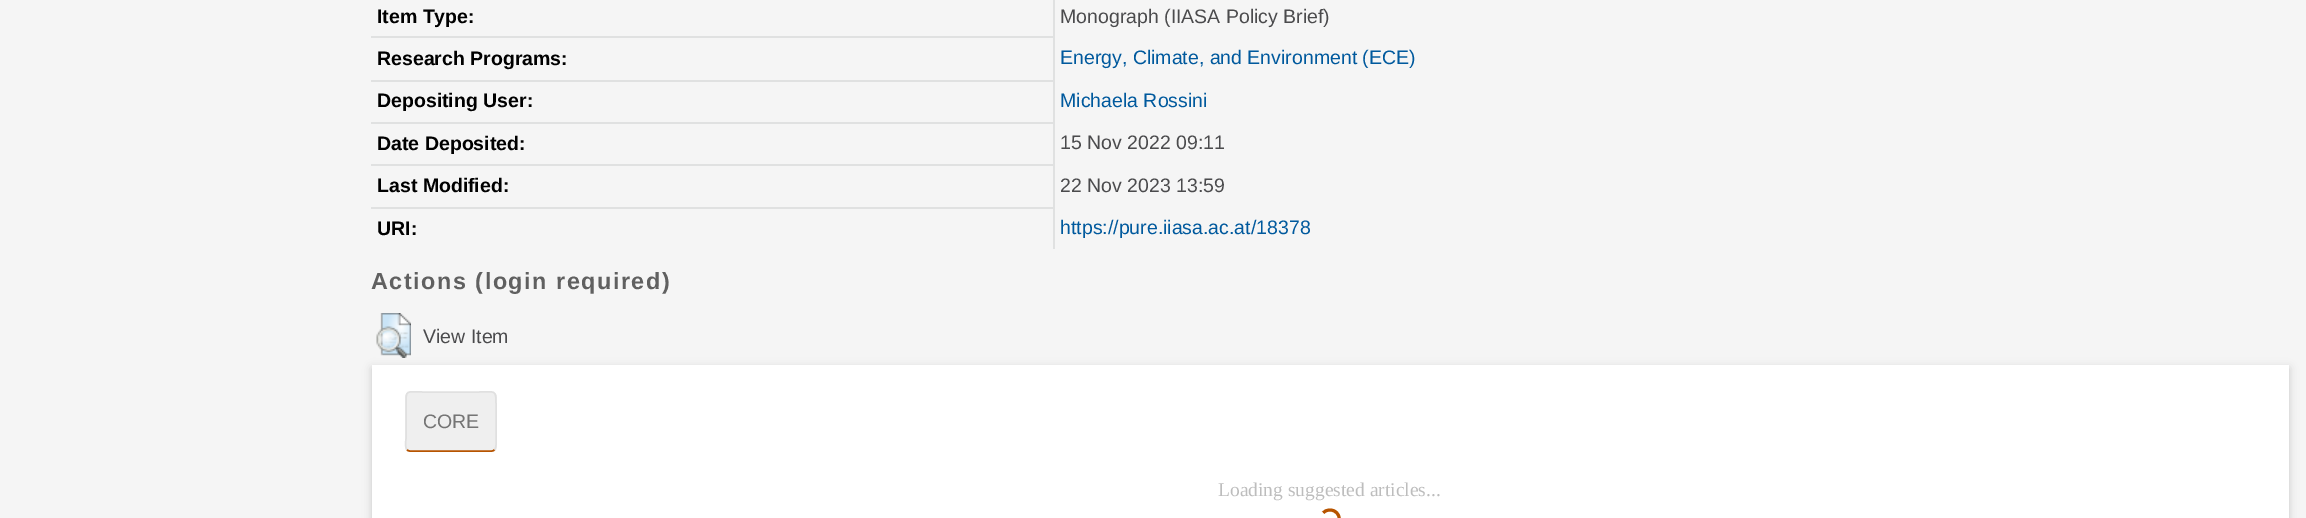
%!PS
<< /PageSize [2306 518] /PageUsesTransparency true >> setpagedevice
/mt/moveto load def
/li/lineto load def
/ct/curveto load def
/fl/fill load def
/st/stroke load def
/lw/setlinewidth load def
/co { dup -16 bitshift 255 div exch dup -8 bitshift 255 and 255 div exch 255 and 255 div setrgbcolor } def
/fn { [ exch dup neg 0 0 3 -1 roll 0 0 ] selectfont } def
/tx { co fn moveto show } def
/bx { co rectfill } def
/al { dup .setfillconstantalpha .setstrokeconstantalpha } def
/rr { 5 dict begin { /r /h /w /y /x } { exch def } forall
  x r add y moveto x w add y 2 copy h add r arct x w add y h add x 1 index r arct
  x y h add x y r arct x y 2 copy exch w add exch r arct closepath end } def
/sh { 12 dict begin { /a /b /q /h /w /y /x } { exch def } forall gsave /was 0 def
  9 -2 -9 { dup b mul 4 div /e exch def 1 sub .425 mul 2.718 exch exp 1 add a .99 .min exch div /now exch def
    1 1 now sub 1 was sub div sub al /was now def
    w h .min e 2 mul add 0 gt { x e sub y e sub w e 2 mul add h e 2 mul add
      q e add b .6 mul add w h .min 2 div e add .min 0 .max rr fill } if } for grestore end } def
/im { 5 dict begin { /h /w /y /x /name } { exch def } forall
  gsave x y translate w h scale
  w h 8 [w 0 0 h 0 0] name (r) file false 3 colorimage grestore end } def
0 .pushpdf14devicefilter
0 518 translate 1 -1 scale
4 setmiterlimit
0 0 2306 518 16#F5F5F5 bx
371 36 684 2 16#E0E1E1 bx
371 80 684 2 16#E0E1E1 bx
371 122 684 2 16#E0E1E1 bx
371 164 684 2 16#E0E1E1 bx
371 207 684 2 16#E0E1E1 bx
1053 207 2 42 16#E0E1E1 bx
1053 164 2 45 16#E0E1E1 bx
1053 122 2 43 16#E0E1E1 bx
1053 80 2 43 16#E0E1E1 bx
1053 0 2 81 16#E0E1E1 bx
16#646464 co
372 368 1917 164 0 4.5 .3 sh
(media/1.raw) 376 313 35 45 im
372 365 1917 153 16#FFFFFF bx
16#EFEFEF co
405 392 92 60 5 rr fl
16#B75400 co
1.5 lw
494.5 449.5 mt 494 450.5 493 451 491.5 451 ct 410 451 li 408.5 451 407.5 450.5 407 449.5 ct st
16#E0E0E0 co
407 449.5 mt 404.5 447 406 440 406 438.5 ct 406 404.5 li 406 389 406 392 423.5 392 ct 478 392 li 495.5 392 496 389 496 404.5 ct 496 438.5 li 496 440 497 447 494.5 449.5 ct st
16#B75400 co
3 lw
1323 513 mt 1324.5 511 1327 510 1330 510 ct 1341.5 510 1343 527 1331.5 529.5 ct 1328.5 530 1325 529 1323 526.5 ct st
16#FFFFFF co
1323 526.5 mt 1319 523 1319 516.5 1323 513 ct st
(Item Type:) 377 23 /LiberationSans-Bold 19.5 16#000000 tx
(Monograph \(IIASA Policy Brief\)) 1060 23 /LiberationSans-Regular 19.5 16#4B4B4D tx
(Research Programs:) 377 65 /LiberationSans-Bold 19.5 16#000000 tx
(Energy, Climate, and Environment \(ECE\)) 1060 64 /LiberationSans-Regular 19.5 16#00599D tx
(Depositing User:) 377 107 /LiberationSans-Bold 19.5 16#000000 tx
(Michaela Rossini) 1060 107 /LiberationSans-Regular 19.5 16#00599D tx
(Date Deposited:) 377 150 /LiberationSans-Bold 19.5 16#000000 tx
(15 Nov 2022 09:11) 1060 149 /LiberationSans-Regular 19.5 16#4B4B4D tx
(Last Modified:) 377 192 /LiberationSans-Bold 19.5 16#000000 tx
(22 Nov 2023 13:59) 1060 192 /LiberationSans-Regular 19.5 16#4B4B4D tx
(URI:) 377 235 /LiberationSans-Bold 19.5 16#000000 tx
(https://pure.iiasa.ac.at/18378) 1060 234 /LiberationSans-Regular 19.5 16#00599D tx
/LiberationSans-Bold 23.4 fn
16#606060 co
371 289 mt 1.5 0 (Actions \(login required\)) ashow
(View Item) 423 343 /LiberationSans-Regular 19.5 16#4B4B4D tx
(CORE) 423 428 /LiberationSans-Regular 19.5 16#757575 tx
(Loading suggested articles...) 1218 496 /LiberationSerif-Regular 19.5 16#BDBDBD tx
.poppdf14devicefilter showpage
